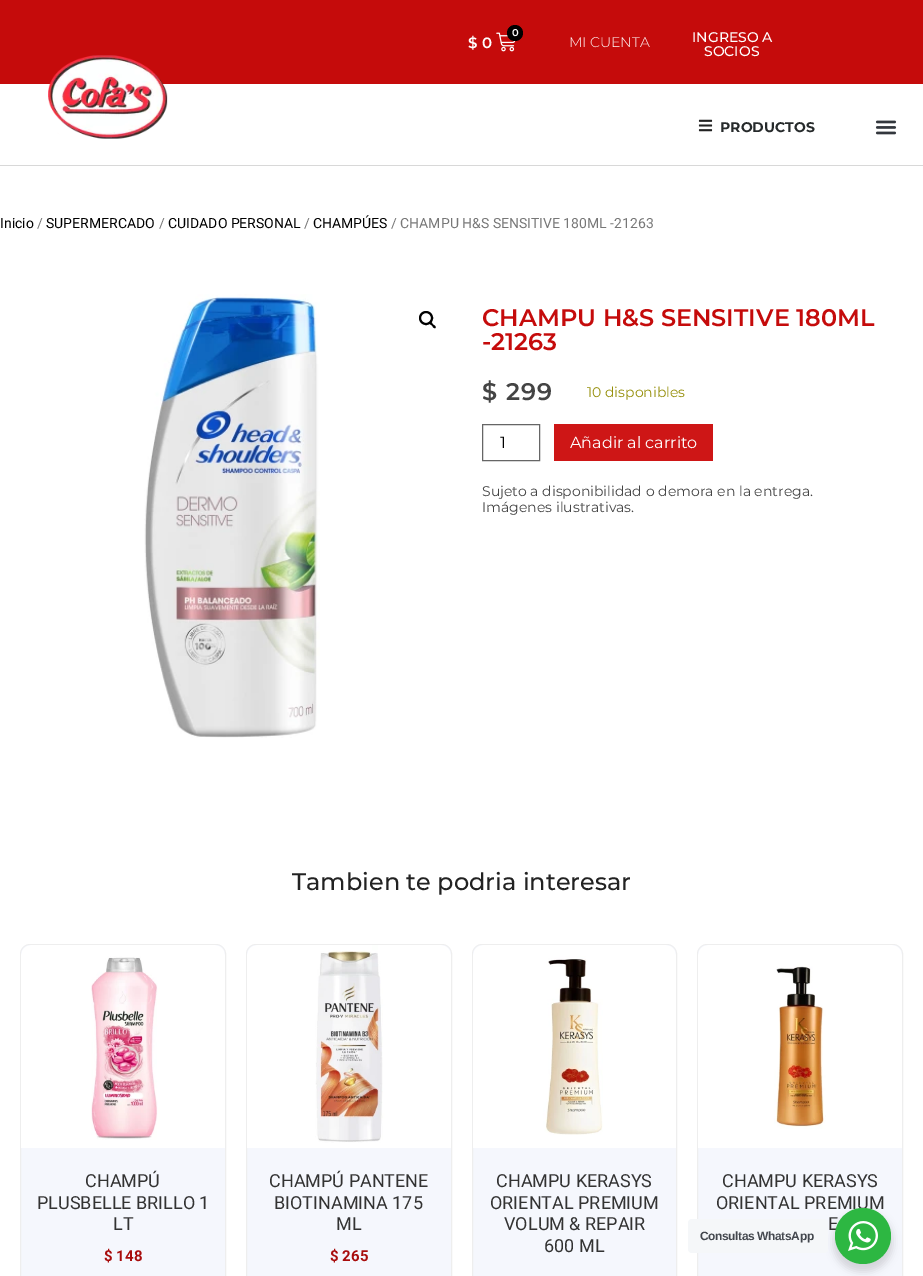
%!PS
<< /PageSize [923 1276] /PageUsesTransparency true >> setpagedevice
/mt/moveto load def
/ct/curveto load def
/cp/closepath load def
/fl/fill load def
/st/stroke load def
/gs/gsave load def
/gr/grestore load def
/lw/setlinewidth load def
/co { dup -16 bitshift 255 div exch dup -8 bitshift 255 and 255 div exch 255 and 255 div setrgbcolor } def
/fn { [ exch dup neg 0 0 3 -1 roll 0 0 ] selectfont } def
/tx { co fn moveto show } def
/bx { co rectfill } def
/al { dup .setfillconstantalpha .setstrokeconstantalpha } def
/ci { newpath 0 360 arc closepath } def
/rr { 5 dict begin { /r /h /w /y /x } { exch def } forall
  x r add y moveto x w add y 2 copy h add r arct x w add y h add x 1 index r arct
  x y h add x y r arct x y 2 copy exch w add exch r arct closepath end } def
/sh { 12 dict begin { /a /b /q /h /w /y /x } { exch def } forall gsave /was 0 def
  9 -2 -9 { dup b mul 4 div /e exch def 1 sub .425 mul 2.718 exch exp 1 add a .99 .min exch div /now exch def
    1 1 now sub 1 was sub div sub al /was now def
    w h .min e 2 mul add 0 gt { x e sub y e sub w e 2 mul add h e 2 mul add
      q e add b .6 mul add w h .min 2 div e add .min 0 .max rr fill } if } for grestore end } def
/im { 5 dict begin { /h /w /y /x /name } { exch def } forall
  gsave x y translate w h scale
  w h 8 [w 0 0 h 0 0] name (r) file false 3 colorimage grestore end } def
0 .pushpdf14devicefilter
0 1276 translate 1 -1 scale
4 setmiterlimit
0 0 923 1276 16#FFFFFF bx
0 0 923 84 16#C50B0B bx
(media/1.raw) 496 32 20 20 im
16#000000 co
515 33 8 ci fl
0 165 923 1 16#D8D8D8 bx
(media/2.raw) 48 55 120 84 im
(media/3.raw) 698 119 15 13 im
(media/4.raw) 875 120 22 15 im
(media/5.raw) 144 294 176 444 im
16#000000 co
2 lw
426 318 6 ci st
429.5 322 mt 431 321 432.5 323.5 433 324.5 ct 434 325 436.5 326.5 435.5 328 ct 434 329 432.5 326.5 432 325.5 ct 431 325 428.5 323.5 429.5 322 ct cp fl
16#666666 co
1 lw
482.5 424.5 57 36 rectstroke
554 424 159 37 16#CE1616 bx
16#F5F7FD co
20.5 944.5 205 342 9.5 rr gs fl gr
16#EEEEEE co
st
(media/6.raw) 21 945 204 203 im
16#F5F7FD co
246.5 944.5 205 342 9.5 rr gs fl gr
16#EEEEEE co
st
(media/7.raw) 247 945 204 203 im
16#F5F7FD co
472.5 944.5 204 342 9.5 rr gs fl gr
16#EEEEEE co
st
(media/8.raw) 473 945 203 203 im
16#F5F7FD co
697.5 944.5 205 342 9.5 rr gs fl gr
16#EEEEEE co
st
(media/9.raw) 698 945 204 203 im
16#000000 co
833 1212 60 60 30 4 .14 sh
16#F5F7F9 co
688 1219 140 34 4 rr fl
(0) 512 36 /Montserrat-SemiBold 10 16#FFFFFF tx
($ 0) 468 48 /Montserrat-SemiBold 15 16#FFFFFF tx
(MI CUENTA) 569 47 /Montserrat-Light 14 16#FFFFFF tx
(INGRESO A) 692 42 /Montserrat-Medium 14 16#FFFFFF tx
(SOCIOS) 704 56 /Montserrat-Medium 14 16#FFFFFF tx
(PRODUCTOS) 720 132 /Montserrat-Bold 14 16#262A2B tx
(Inicio) 0 228 /Roboto-Regular 14 16#000000 tx
(/) 37 228 /Roboto-Regular 14 16#777777 tx
(SUPERMERCADO) 46 228 /Roboto-Regular 14 16#000000 tx
(/) 159 228 /Roboto-Regular 14 16#777777 tx
(CUIDADO PERSONAL) 168 228 /Roboto-Regular 14 16#000000 tx
(/) 304 228 /Roboto-Regular 14 16#777777 tx
(CHAMPÚES) 313 228 /Roboto-Regular 14 16#000000 tx
(/ CHAMPU H&S SENSITIVE 180ML -21263) 391 228 /Roboto-Regular 14 16#777777 tx
(CHAMPU H&S SENSITIVE 180ML) 482 326 /Montserrat-SemiBold 24 16#C50B0B tx
(-21263) 482 350 /Montserrat-SemiBold 24 16#C50B0B tx
16#444444 co
482 400 mt 1 0 ($ 299) ashow
(10 disponibles) 587 397 /Montserrat-Regular 14 16#958E09 tx
(1) 500 448 /Montserrat-Regular 16 16#000000 tx
(Añadir al carrito) 570 448 /Montserrat-Regular 16 16#FFFFFF tx
(Sujeto a disponibilidad o demora en la entrega.) 482 496 /Montserrat-Regular 14 16#444444 tx
(Imágenes ilustrativas.) 482 512 /Montserrat-Regular 14 16#444444 tx
(Tambien te podria interesar) 292 890 /Montserrat-Medium 24 16#222222 tx
(CHAMPÚ) 85 1187 /Roboto-Regular 18 16#333333 tx
(PLUSBELLE BRILLO 1) 37 1209 /Roboto-Regular 18 16#333333 tx
(LT) 113 1230 /Roboto-Regular 18 16#333333 tx
($ 148) 104 1261 /Roboto-Bold 15 16#A80D0D tx
(CHAMPÚ PANTENE) 269 1187 /Roboto-Regular 18 16#333333 tx
(BIOTINAMINA 175) 274 1209 /Roboto-Regular 18 16#333333 tx
(ML) 336 1230 /Roboto-Regular 18 16#333333 tx
($ 265) 330 1261 /Roboto-Bold 15 16#A80D0D tx
(CHAMPU KERASYS) 496 1187 /Roboto-Regular 18 16#333333 tx
(ORIENTAL PREMIUM) 490 1209 /Roboto-Regular 18 16#333333 tx
(VOLUM & REPAIR) 504 1230 /Roboto-Regular 18 16#333333 tx
(600 ML) 544 1252 /Roboto-Regular 18 16#333333 tx
(CHAMPU KERASYS) 722 1187 /Roboto-Regular 18 16#333333 tx
(ORIENTAL PREMIUM) 716 1209 /Roboto-Regular 18 16#333333 tx
(E) 828 1230 /Roboto-Regular 18 16#333333 tx
/LiberationSans-Bold 12 fn
16#43474E co
700 1240 mt -.4 0 (Consultas WhatsApp) ashow
16#2DB742 co
863 1236 28 ci fl
(media/10.raw) 848 1221 30 30 im
.poppdf14devicefilter showpage
